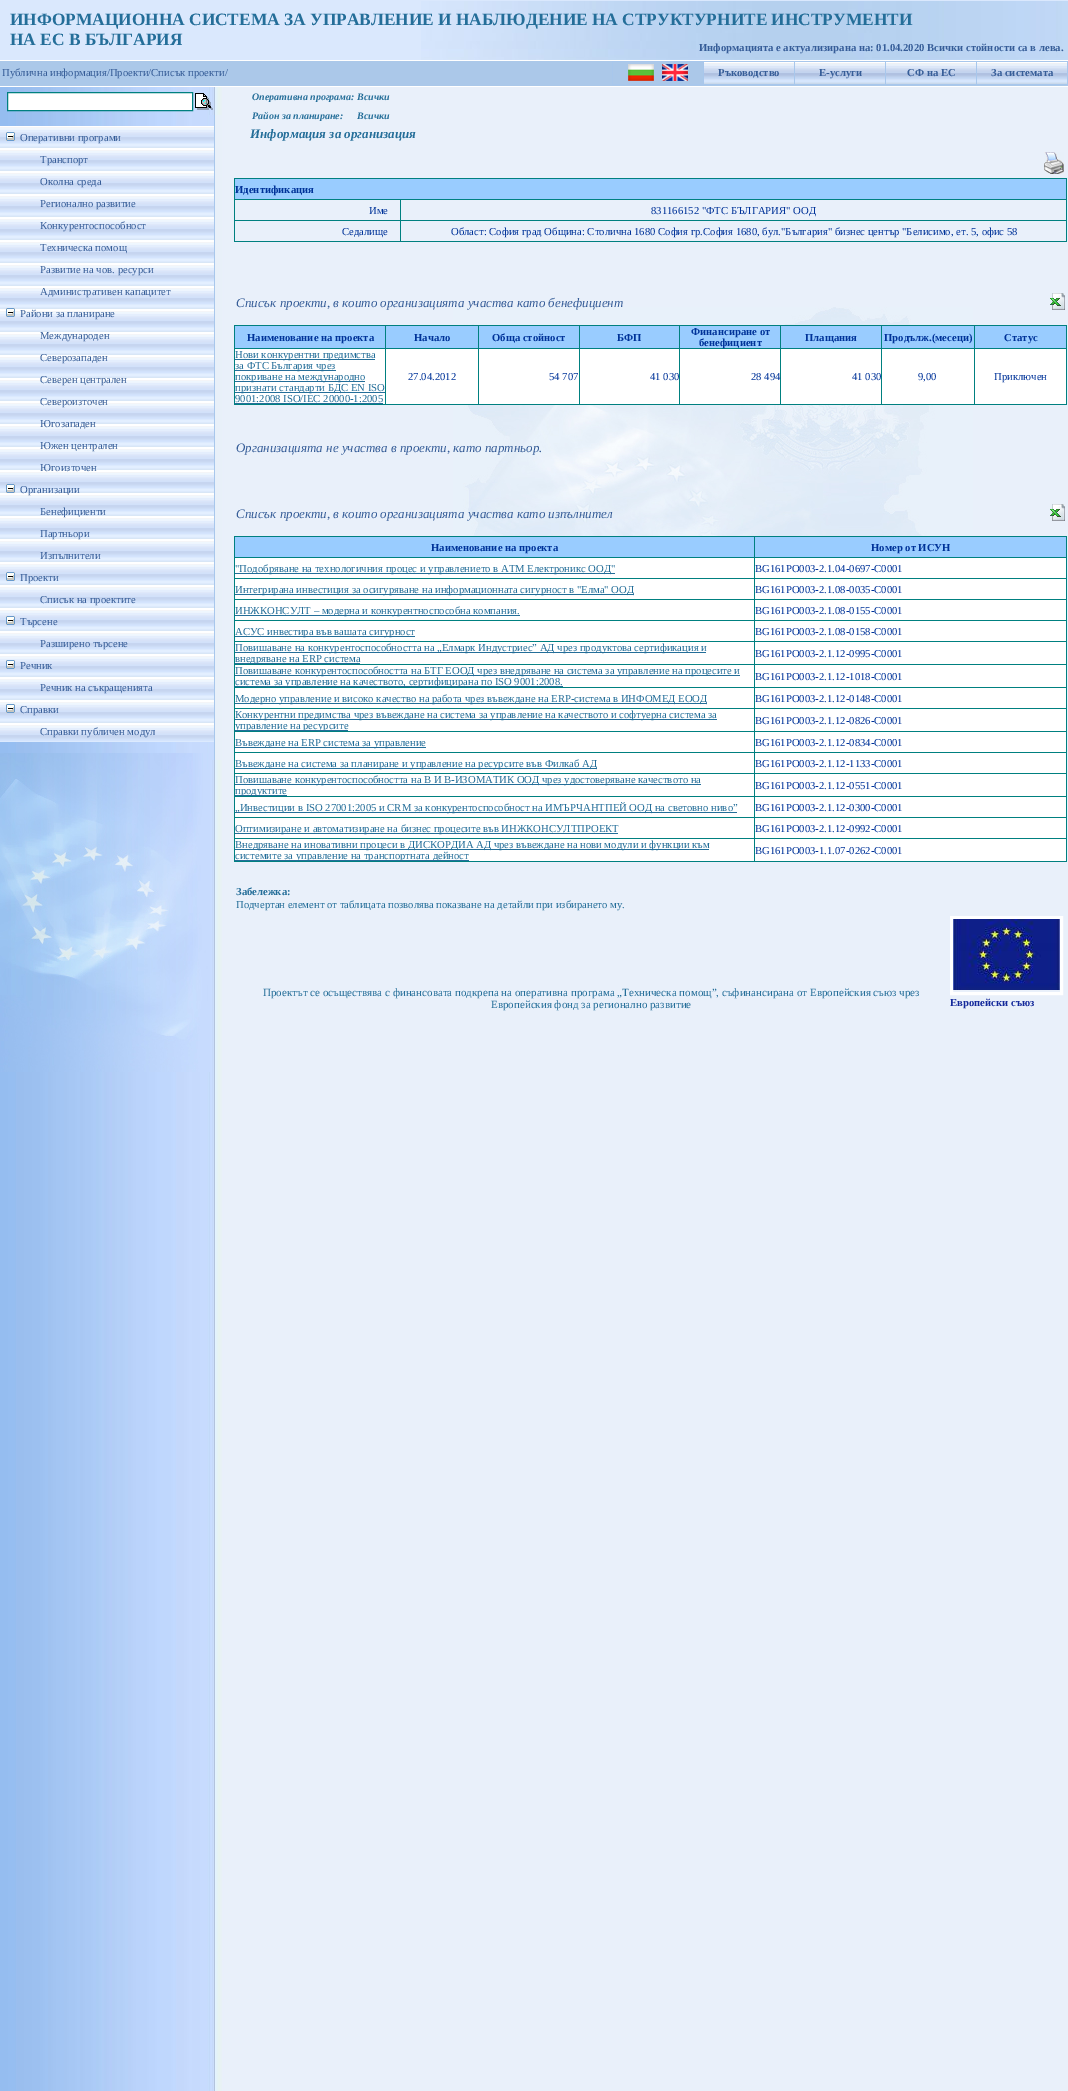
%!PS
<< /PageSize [1068 2091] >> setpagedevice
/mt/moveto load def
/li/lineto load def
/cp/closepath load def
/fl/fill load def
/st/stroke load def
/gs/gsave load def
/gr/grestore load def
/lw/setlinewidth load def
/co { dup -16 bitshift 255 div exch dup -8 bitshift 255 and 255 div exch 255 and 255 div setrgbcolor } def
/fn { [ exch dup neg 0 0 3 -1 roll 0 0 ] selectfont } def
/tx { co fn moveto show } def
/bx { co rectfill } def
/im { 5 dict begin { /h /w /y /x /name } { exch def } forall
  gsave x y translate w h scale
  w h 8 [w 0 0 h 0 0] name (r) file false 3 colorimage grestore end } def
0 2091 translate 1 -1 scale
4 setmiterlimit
0 0 1068 2091 16#FFFFFF bx
(media/1.raw) 0 87 1068 2004 im
0 0 1068 60 16#DAE8FD bx
(media/2.raw) 421 1 647 59 im
0 61 1068 25 16#ABC8E9 bx
612 61 456 1 16#A8C7EC bx
1067 61 1 24 16#A8C7EC bx
612 84 456 1 16#A8C7EC bx
612 61 1 24 16#A8C7EC bx
(media/3.raw) 628 64 26 17 im
(media/4.raw) 662 64 26 17 im
703 61 1 24 16#A8C7EC bx
(media/5.raw) 704 62 90 22 im
794 61 1 24 16#A8C7EC bx
(media/5.raw) 795 62 90 22 im
885 61 1 24 16#A8C7EC bx
(media/5.raw) 886 62 90 22 im
976 61 1 24 16#A8C7EC bx
(media/5.raw) 977 62 90 22 im
16#FFFFFF co
7.5 92.5 mt 192.5 92.5 li 192.5 110.5 li 7.5 110.5 li cp gs fl gr
16#008080 co
st
(media/6.raw) 195 93 18 17 im
215 115 7 645 16#E8F0F9 bx
(media/7.raw) 453 307 520 229 im
209 115 5 645 16#C7DBFE bx
214 115 1 645 16#A8C7EC bx
(media/8.raw) 0 126 214 616 im
(media/9.raw) 6 132 9 9 im
(media/9.raw) 6 308 9 9 im
(media/9.raw) 6 484 9 9 im
(media/9.raw) 6 572 9 9 im
(media/9.raw) 6 616 9 9 im
(media/9.raw) 6 660 9 9 im
(media/9.raw) 6 704 9 9 im
(media/10.raw) 0 753 210 319 im
(media/11.raw) 1044 152 20 22 im
234 178 833 1 16#008080 bx
1066 178 1 64 16#008080 bx
234 241 833 1 16#008080 bx
234 178 1 64 16#008080 bx
235 179 831 20 16#99CCFF bx
400 199 667 1 16#008080 bx
400 220 667 1 16#008080 bx
400 220 1 22 16#008080 bx
234 220 167 1 16#008080 bx
400 199 1 22 16#008080 bx
234 199 167 1 16#008080 bx
(media/12.raw) 1050 293 15 17 im
234 325 833 1 16#008080 bx
1066 325 1 80 16#008080 bx
234 404 833 1 16#008080 bx
234 325 1 80 16#008080 bx
235 326 831 22 16#99CCFF bx
974 348 93 1 16#008080 bx
974 348 1 57 16#008080 bx
881 348 94 1 16#008080 bx
881 348 1 57 16#008080 bx
780 348 102 1 16#008080 bx
780 348 1 57 16#008080 bx
679 348 102 1 16#008080 bx
679 348 1 57 16#008080 bx
579 348 101 1 16#008080 bx
579 348 1 57 16#008080 bx
478 348 102 1 16#008080 bx
478 348 1 57 16#008080 bx
385 348 94 1 16#008080 bx
385 348 1 57 16#008080 bx
234 348 152 1 16#008080 bx
385 325 1 24 16#008080 bx
478 325 1 24 16#008080 bx
579 325 1 24 16#008080 bx
679 325 1 24 16#008080 bx
780 325 1 24 16#008080 bx
881 325 1 24 16#008080 bx
974 325 1 24 16#008080 bx
235 349 150 55 16#FFFFFF bx
235 359 140 1 16#246E99 bx
235 370 101 1 16#246E99 bx
235 381 130 1 16#246E99 bx
235 392 150 1 16#246E99 bx
235 403 148 1 16#246E99 bx
386 349 92 55 16#FFFFFF bx
479 349 100 55 16#FFFFFF bx
580 349 99 55 16#FFFFFF bx
680 349 100 55 16#FFFFFF bx
781 349 100 55 16#FFFFFF bx
882 349 92 55 16#FFFFFF bx
975 349 91 55 16#FFFFFF bx
(media/12.raw) 1050 504 15 17 im
234 536 833 1 16#008080 bx
1066 536 1 326 16#008080 bx
234 861 833 1 16#008080 bx
234 536 1 326 16#008080 bx
235 537 831 20 16#99CCFF bx
754 557 313 1 16#008080 bx
754 578 313 1 16#008080 bx
754 599 313 1 16#008080 bx
754 620 313 1 16#008080 bx
754 641 313 1 16#008080 bx
754 664 313 1 16#008080 bx
754 687 313 1 16#008080 bx
754 708 313 1 16#008080 bx
754 731 313 1 16#008080 bx
754 752 313 1 16#008080 bx
754 773 313 1 16#008080 bx
754 796 313 1 16#008080 bx
754 817 313 1 16#008080 bx
754 838 313 1 16#008080 bx
754 838 1 24 16#008080 bx
234 838 521 1 16#008080 bx
754 817 1 22 16#008080 bx
234 817 521 1 16#008080 bx
754 796 1 22 16#008080 bx
234 796 521 1 16#008080 bx
754 773 1 24 16#008080 bx
234 773 521 1 16#008080 bx
754 752 1 22 16#008080 bx
234 752 521 1 16#008080 bx
754 731 1 22 16#008080 bx
234 731 521 1 16#008080 bx
754 708 1 24 16#008080 bx
234 708 521 1 16#008080 bx
754 687 1 22 16#008080 bx
234 687 521 1 16#008080 bx
754 664 1 24 16#008080 bx
234 664 521 1 16#008080 bx
754 641 1 24 16#008080 bx
234 641 521 1 16#008080 bx
754 620 1 22 16#008080 bx
234 620 521 1 16#008080 bx
754 599 1 22 16#008080 bx
234 599 521 1 16#008080 bx
754 578 1 22 16#008080 bx
234 578 521 1 16#008080 bx
754 557 1 22 16#008080 bx
234 557 521 1 16#008080 bx
754 536 1 22 16#008080 bx
235 558 519 20 16#FFFFFF bx
235 573 380 1 16#246E99 bx
755 558 311 20 16#FFFFFF bx
235 579 519 20 16#FFFFFF bx
235 594 399 1 16#246E99 bx
755 579 311 20 16#FFFFFF bx
235 600 519 20 16#FFFFFF bx
235 615 285 1 16#246E99 bx
755 600 311 20 16#FFFFFF bx
235 621 519 20 16#FFFFFF bx
235 636 180 1 16#246E99 bx
755 621 311 20 16#FFFFFF bx
235 642 519 22 16#FFFFFF bx
235 652 471 1 16#246E99 bx
235 663 125 1 16#246E99 bx
755 642 311 22 16#FFFFFF bx
235 665 519 22 16#FFFFFF bx
235 675 505 1 16#246E99 bx
235 686 328 1 16#246E99 bx
755 665 311 22 16#FFFFFF bx
235 688 519 20 16#FFFFFF bx
235 703 472 1 16#246E99 bx
755 688 311 20 16#FFFFFF bx
235 709 519 22 16#FFFFFF bx
235 719 482 1 16#246E99 bx
235 730 113 1 16#246E99 bx
755 709 311 22 16#FFFFFF bx
235 732 519 20 16#FFFFFF bx
235 747 191 1 16#246E99 bx
755 732 311 20 16#FFFFFF bx
235 753 519 20 16#FFFFFF bx
235 768 362 1 16#246E99 bx
755 753 311 20 16#FFFFFF bx
235 774 519 22 16#FFFFFF bx
235 784 466 1 16#246E99 bx
235 795 52 1 16#246E99 bx
755 774 311 22 16#FFFFFF bx
235 797 519 20 16#FFFFFF bx
235 812 502 1 16#246E99 bx
755 797 311 20 16#FFFFFF bx
235 818 519 20 16#FFFFFF bx
235 833 383 1 16#246E99 bx
755 818 311 20 16#FFFFFF bx
235 839 519 22 16#FFFFFF bx
235 849 474 1 16#246E99 bx
235 860 234 1 16#246E99 bx
755 839 311 22 16#FFFFFF bx
3 lw
951.5 917.5 110 76 rectstroke
(media/13.raw) 953 919 107 71 im
(ИНФОРМАЦИОННА СИСТЕМА ЗА УПРАВЛЕНИЕ И НАБЛЮДЕНИЕ НА СТРУКТУРНИТЕ ИНСТРУМЕНТИ) 10 25 /LiberationSerif-Bold 17.33 16#246E99 tx
(НА ЕС В БЪЛГАРИЯ) 10 45 /LiberationSerif-Bold 17.33 16#246E99 tx
(Информацията е актуализирана на: 01.04.2020 Всички стойности са в лева.) 699 51 /LiberationSerif-Bold 10.67 16#365D98 tx
(Публична информация/Проекти/Списък проекти/) 2 76 /LiberationSerif-Regular 10.67 16#365D98 tx
(Ръководство) 718 76 /LiberationSerif-Bold 10.67 16#365D98 tx
(Е-услуги) 819 76 /LiberationSerif-Bold 10.67 16#365D98 tx
(СФ на ЕС) 907 76 /LiberationSerif-Bold 10.67 16#365D98 tx
(За системата) 991 76 /LiberationSerif-Bold 10.67 16#365D98 tx
(Оперативна програма:) 252 100 /LiberationSerif-BoldItalic 10 16#246E99 tx
(Всички) 357 100 /LiberationSerif-BoldItalic 10 16#246E99 tx
(Район за планиране:) 252 119 /LiberationSerif-BoldItalic 10 16#246E99 tx
(Всички) 357 119 /LiberationSerif-BoldItalic 10 16#246E99 tx
(Информация за организация) 250 138 /LiberationSerif-BoldItalic 13 16#246E99 tx
(Оперативни програми) 20 141 /LiberationSerif-Regular 10.67 16#365D98 tx
(Транспорт) 40 163 /LiberationSerif-Regular 10.67 16#365D98 tx
(Околна среда) 40 185 /LiberationSerif-Regular 10.67 16#365D98 tx
(Регионално развитие) 40 207 /LiberationSerif-Regular 10.67 16#365D98 tx
(Конкурентоспособност) 40 229 /LiberationSerif-Regular 10.67 16#365D98 tx
(Техническа помощ) 40 251 /LiberationSerif-Regular 10.67 16#365D98 tx
(Развитие на чов. ресурси) 40 273 /LiberationSerif-Regular 10.67 16#365D98 tx
(Административен капацитет) 40 295 /LiberationSerif-Regular 10.67 16#365D98 tx
(Райони за планиране) 20 317 /LiberationSerif-Regular 10.67 16#365D98 tx
(Международен) 40 339 /LiberationSerif-Regular 10.67 16#365D98 tx
(Северозападен) 40 361 /LiberationSerif-Regular 10.67 16#365D98 tx
(Северен централен) 40 383 /LiberationSerif-Regular 10.67 16#365D98 tx
(Североизточен) 40 405 /LiberationSerif-Regular 10.67 16#365D98 tx
(Югозападен) 40 427 /LiberationSerif-Regular 10.67 16#365D98 tx
(Южен централен) 40 449 /LiberationSerif-Regular 10.67 16#365D98 tx
(Югоизточен) 40 471 /LiberationSerif-Regular 10.67 16#365D98 tx
(Организации) 20 493 /LiberationSerif-Regular 10.67 16#365D98 tx
(Бенефициенти) 40 515 /LiberationSerif-Regular 10.67 16#365D98 tx
(Партньори) 40 537 /LiberationSerif-Regular 10.67 16#365D98 tx
(Изпълнители) 40 559 /LiberationSerif-Regular 10.67 16#365D98 tx
(Проекти) 20 581 /LiberationSerif-Regular 10.67 16#365D98 tx
(Списък на проектите) 40 603 /LiberationSerif-Regular 10.67 16#365D98 tx
(Търсене) 20 625 /LiberationSerif-Regular 10.67 16#365D98 tx
(Разширено търсене) 40 647 /LiberationSerif-Regular 10.67 16#365D98 tx
(Речник) 20 669 /LiberationSerif-Regular 10.67 16#365D98 tx
(Речник на съкращенията) 40 691 /LiberationSerif-Regular 10.67 16#365D98 tx
(Справки) 20 713 /LiberationSerif-Regular 10.67 16#365D98 tx
(Справки публичен модул) 40 735 /LiberationSerif-Regular 10.67 16#365D98 tx
(Идентификация) 235 193 /LiberationSerif-Bold 10.67 16#003399 tx
(Име) 369 214 /LiberationSerif-Regular 10.67 16#003399 tx
(831166152 "ФТС БЪЛГАРИЯ" ООД) 651 214 /LiberationSerif-Regular 10.67 16#003399 tx
(Седалище) 342 235 /LiberationSerif-Regular 10.67 16#003399 tx
(Област: София град Oбщина: Столична 1680 София гр.София 1680, бул."България" бизнес център "Белисимо, ет. 5, офис 58) 451 235 /LiberationSerif-Regular 10.67 16#003399 tx
(Списък проекти, в които организацията участва като бенефициент) 236 307 /LiberationSerif-Italic 13 16#365D98 tx
(Наименование на проекта) 247 341 /LiberationSerif-Bold 10.67 16#003399 tx
(Начало) 414 341 /LiberationSerif-Bold 10.67 16#003399 tx
(Обща стойност) 492 341 /LiberationSerif-Bold 10.67 16#003399 tx
(БФП) 617 341 /LiberationSerif-Bold 10.67 16#003399 tx
(Финансиране от) 691 335 /LiberationSerif-Bold 10.67 16#003399 tx
(бенефициент) 699 346 /LiberationSerif-Bold 10.67 16#003399 tx
(Плащания) 805 341 /LiberationSerif-Bold 10.67 16#003399 tx
(Продълж.\(месеци\)) 884 341 /LiberationSerif-Bold 10.67 16#003399 tx
(Статус) 1004 341 /LiberationSerif-Bold 10.67 16#003399 tx
(Нови конкурентни предимства) 235 358 /LiberationSerif-Regular 10.67 16#246E99 tx
(за ФТС България чрез) 235 369 /LiberationSerif-Regular 10.67 16#246E99 tx
(покриване на международно) 235 380 /LiberationSerif-Regular 10.67 16#246E99 tx
(признати стандарти БДС EN ISO) 235 391 /LiberationSerif-Regular 10.67 16#246E99 tx
(9001:2008 ISO/IEC 20000-1:2005) 235 402 /LiberationSerif-Regular 10.67 16#246E99 tx
(27.04.2012) 408 380 /LiberationSerif-Regular 10.67 16#003399 tx
(54 707) 549 380 /LiberationSerif-Regular 10.67 16#003399 tx
(41 030) 650 380 /LiberationSerif-Regular 10.67 16#003399 tx
(28 494) 751 380 /LiberationSerif-Regular 10.67 16#003399 tx
(41 030) 852 380 /LiberationSerif-Regular 10.67 16#003399 tx
(9,00) 918 380 /LiberationSerif-Regular 10.67 16#003399 tx
(Приключен) 994 380 /LiberationSerif-Regular 10.67 16#003399 tx
(Организацията не участва в проекти, като партньор.) 236 452 /LiberationSerif-Italic 13 16#365D98 tx
(Списък проекти, в които организацията участва като изпълнител) 236 518 /LiberationSerif-Italic 13 16#365D98 tx
(Наименование на проекта) 431 551 /LiberationSerif-Bold 10.67 16#003399 tx
(Номер от ИСУН) 871 551 /LiberationSerif-Bold 10.67 16#003399 tx
("Подобряване на технологичния процес и управлението в АТМ Електроникс ООД") 235 572 /LiberationSerif-Regular 10.67 16#246E99 tx
(BG161PO003-2.1.04-0697-C0001) 755 572 /LiberationSerif-Regular 10.67 16#003399 tx
(Интегрирана инвестиция за осигуряване на информационната сигурност в "Елма" ООД) 235 593 /LiberationSerif-Regular 10.67 16#246E99 tx
(BG161PO003-2.1.08-0035-C0001) 755 593 /LiberationSerif-Regular 10.67 16#003399 tx
(ИНЖКОНСУЛТ – модерна и конкурентноспособна компания.) 235 614 /LiberationSerif-Regular 10.67 16#246E99 tx
(BG161PO003-2.1.08-0155-C0001) 755 614 /LiberationSerif-Regular 10.67 16#003399 tx
(АСУС инвестира във вашата сигурност) 235 635 /LiberationSerif-Regular 10.67 16#246E99 tx
(BG161PO003-2.1.08-0158-C0001) 755 635 /LiberationSerif-Regular 10.67 16#003399 tx
(Повишаване на конкурентоспособността на „Елмарк Индустриес” АД чрез продуктова сертификация и) 235 651 /LiberationSerif-Regular 10.67 16#246E99 tx
(внедряване на ERP система) 235 662 /LiberationSerif-Regular 10.67 16#246E99 tx
(BG161PO003-2.1.12-0995-C0001) 755 657 /LiberationSerif-Regular 10.67 16#003399 tx
(Повишаване конкурентоспособността на БТГ ЕООД чрез внедряване на система за управление на процесите и) 235 674 /LiberationSerif-Regular 10.67 16#246E99 tx
(система за управление на качеството, сертифицирана по ISO 9001:2008.) 235 685 /LiberationSerif-Regular 10.67 16#246E99 tx
(BG161PO003-2.1.12-1018-C0001) 755 680 /LiberationSerif-Regular 10.67 16#003399 tx
(Модерно управление и високо качество на работа чрез въвеждане на ERP-система в ИНФОМЕД ЕООД) 235 702 /LiberationSerif-Regular 10.67 16#246E99 tx
(BG161PO003-2.1.12-0148-C0001) 755 702 /LiberationSerif-Regular 10.67 16#003399 tx
(Конкурентни предимства чрез въвеждане на система за управление на качеството и софтуерна система за) 235 718 /LiberationSerif-Regular 10.67 16#246E99 tx
(управление на ресурсите) 235 729 /LiberationSerif-Regular 10.67 16#246E99 tx
(BG161PO003-2.1.12-0826-C0001) 755 724 /LiberationSerif-Regular 10.67 16#003399 tx
(Въвеждане на ERP система за управление) 235 746 /LiberationSerif-Regular 10.67 16#246E99 tx
(BG161PO003-2.1.12-0834-C0001) 755 746 /LiberationSerif-Regular 10.67 16#003399 tx
(Въвеждане на система за планиране и управление на ресурсите във Филкаб АД) 235 767 /LiberationSerif-Regular 10.67 16#246E99 tx
(BG161PO003-2.1.12-1133-C0001) 755 767 /LiberationSerif-Regular 10.67 16#003399 tx
(Повишаване конкурентоспособността на В И В-ИЗОМАТИК ООД чрез удостоверяване качеството на) 235 783 /LiberationSerif-Regular 10.67 16#246E99 tx
(продуктите) 235 794 /LiberationSerif-Regular 10.67 16#246E99 tx
(BG161PO003-2.1.12-0551-C0001) 755 789 /LiberationSerif-Regular 10.67 16#003399 tx
(„Инвестиции в ISO 27001:2005 и CRM за конкурентоспособност на ИМЪРЧАНТПЕЙ ООД на световно ниво”) 235 811 /LiberationSerif-Regular 10.67 16#246E99 tx
(BG161PO003-2.1.12-0300-C0001) 755 811 /LiberationSerif-Regular 10.67 16#003399 tx
(Оптимизиране и автоматизиране на бизнес процесите във ИНЖКОНСУЛТПРОЕКТ) 235 832 /LiberationSerif-Regular 10.67 16#246E99 tx
(BG161PO003-2.1.12-0992-C0001) 755 832 /LiberationSerif-Regular 10.67 16#003399 tx
(Внедряване на иновативни процеси в ДИСКОРДИА АД чрез въвеждане на нови модули и функции към) 235 848 /LiberationSerif-Regular 10.67 16#246E99 tx
(системите за управление на транспортната дейност) 235 859 /LiberationSerif-Regular 10.67 16#246E99 tx
(BG161PO003-1.1.07-0262-C0001) 755 854 /LiberationSerif-Regular 10.67 16#003399 tx
(Забележка:) 236 895 /LiberationSerif-Bold 10.67 16#246E99 tx
(Подчертан елемент от таблицата позволява показване на детайли при избирането му.) 236 908 /LiberationSerif-Regular 10.67 16#246E99 tx
(Проектът се осъществява с финансовата подкрепа на оперативна програма „Техническа помощ”, съфинансирана от Европейския съюз чрез) 263 996 /LiberationSerif-Regular 11 16#246E99 tx
(Европейския фонд за регионално развитие) 491 1008 /LiberationSerif-Regular 11 16#246E99 tx
(Европейски съюз) 950 1006 /LiberationSerif-Bold 10.67 16#14299B tx
showpage
